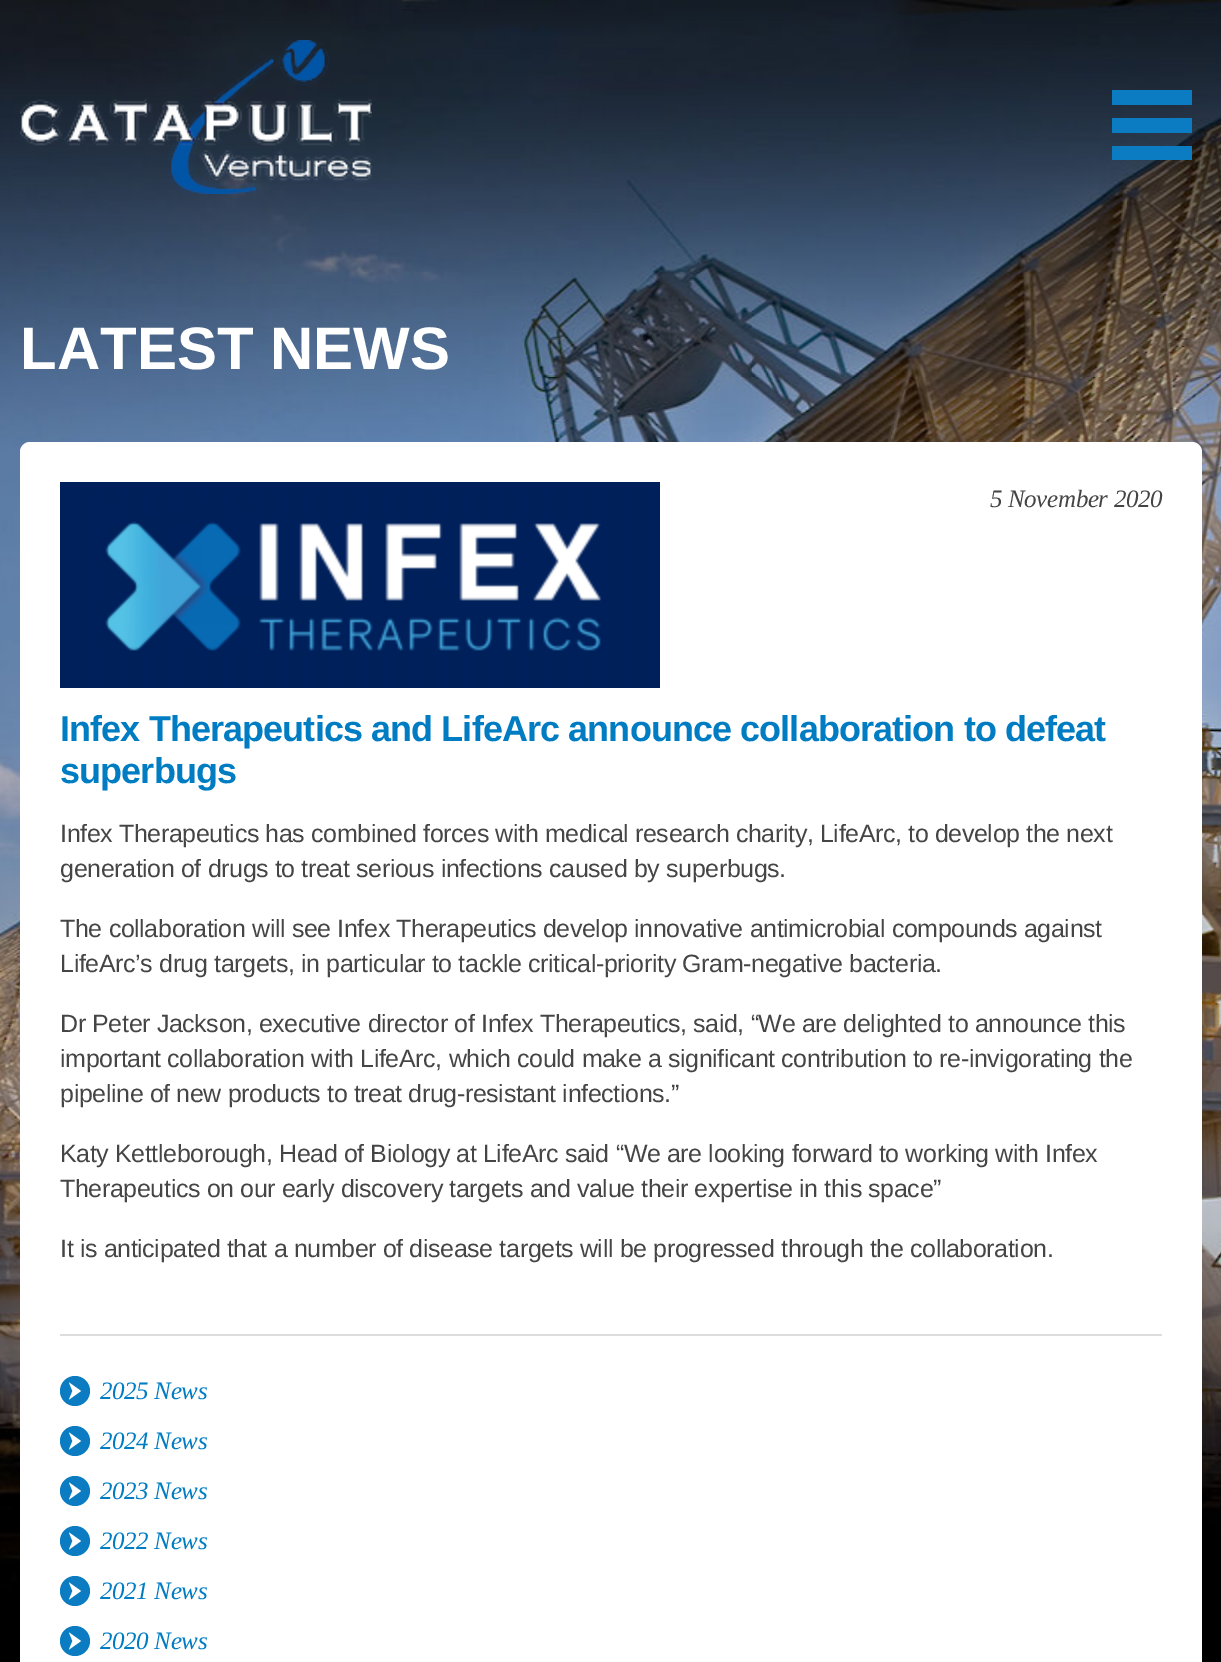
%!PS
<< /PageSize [1221 1662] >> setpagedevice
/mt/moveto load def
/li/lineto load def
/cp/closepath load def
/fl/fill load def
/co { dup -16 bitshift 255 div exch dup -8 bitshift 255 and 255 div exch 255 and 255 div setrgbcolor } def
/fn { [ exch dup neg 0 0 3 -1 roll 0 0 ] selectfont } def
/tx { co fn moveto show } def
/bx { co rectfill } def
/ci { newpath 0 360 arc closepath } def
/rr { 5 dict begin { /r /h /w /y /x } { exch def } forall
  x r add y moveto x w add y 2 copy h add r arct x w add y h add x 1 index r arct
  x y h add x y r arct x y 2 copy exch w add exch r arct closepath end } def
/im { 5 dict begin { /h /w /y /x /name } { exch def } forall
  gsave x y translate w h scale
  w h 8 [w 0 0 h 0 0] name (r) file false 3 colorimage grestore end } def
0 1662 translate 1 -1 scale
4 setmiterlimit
0 0 1221 1662 16#FFFFFF bx
(media/1.raw) 0 0 1221 1662 im
(media/2.raw) 20 40 352 154 im
1112 90 80 15 16#0B7CC1 bx
1112 118 80 15 16#0B7CC1 bx
1112 146 80 14 16#0B7CC1 bx
16#FFFFFF co
20 442 1182 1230 10 rr fl
(media/3.raw) 60 482 600 206 im
60 1334 1102 2 16#DDDDDD bx
16#0B7CC1 co
75 1391 15 ci fl
16#FFFFFF co
72.5 1391 mt 69 1399.5 li 81 1391 li 69 1382.5 li cp fl
16#0B7CC1 co
75 1441 15 ci fl
16#FFFFFF co
72.5 1441 mt 69 1449.5 li 81 1441 li 69 1432.5 li cp fl
16#0B7CC1 co
75 1491 15 ci fl
16#FFFFFF co
72.5 1491 mt 69 1499.5 li 81 1491 li 69 1482.5 li cp fl
16#0B7CC1 co
75 1541 15 ci fl
16#FFFFFF co
72.5 1541 mt 69 1549.5 li 81 1541 li 69 1532.5 li cp fl
16#0B7CC1 co
75 1591 15 ci fl
16#FFFFFF co
72.5 1591 mt 69 1599.5 li 81 1591 li 69 1582.5 li cp fl
16#0B7CC1 co
75 1641 15 ci fl
16#FFFFFF co
72.5 1641 mt 69 1649.5 li 81 1641 li 69 1632.5 li cp fl
(LATEST NEWS) 20 369 /LiberationSans-Bold 60 16#FFFFFF tx
/LiberationSerif-Italic 25 fn
16#454545 co
990 507 mt -.38 0 (5 November 2020) ashow
/LiberationSans-Bold 36 fn
16#007CC3 co
60 741 mt -.9 0 (Infex Therapeutics and LifeArc announce collaboration to defeat) ashow
60 783 mt -.9 0 (superbugs) ashow
/LiberationSans-Regular 25 fn
16#454545 co
60 842 mt -.38 0 (Infex Therapeutics has combined forces with medical research charity, LifeArc, to develop the next) ashow
60 877 mt -.38 0 (generation of drugs to treat serious infections caused by superbugs.) ashow
60 937 mt -.38 0 (The collaboration will see Infex Therapeutics develop innovative antimicrobial compounds against) ashow
60 972 mt -.38 0 (LifeArc’s drug targets, in particular to tackle critical-priority Gram-negative bacteria.) ashow
60 1032 mt -.38 0 (Dr Peter Jackson, executive director of Infex Therapeutics, said, “We are delighted to announce this) ashow
60 1067 mt -.38 0 (important collaboration with LifeArc, which could make a significant contribution to re-invigorating the) ashow
60 1102 mt -.38 0 (pipeline of new products to treat drug-resistant infections.”) ashow
60 1162 mt -.38 0 (Katy Kettleborough, Head of Biology at LifeArc said “We are looking forward to working with Infex) ashow
60 1197 mt -.38 0 (Therapeutics on our early discovery targets and value their expertise in this space”) ashow
60 1257 mt -.38 0 (It is anticipated that a number of disease targets will be progressed through the collaboration.) ashow
/LiberationSerif-Italic 25 fn
16#007CC3 co
100 1399 mt -.38 0 (2025 News) ashow
100 1449 mt -.38 0 (2024 News) ashow
100 1499 mt -.38 0 (2023 News) ashow
100 1549 mt -.38 0 (2022 News) ashow
100 1599 mt -.38 0 (2021 News) ashow
100 1649 mt -.38 0 (2020 News) ashow
showpage
